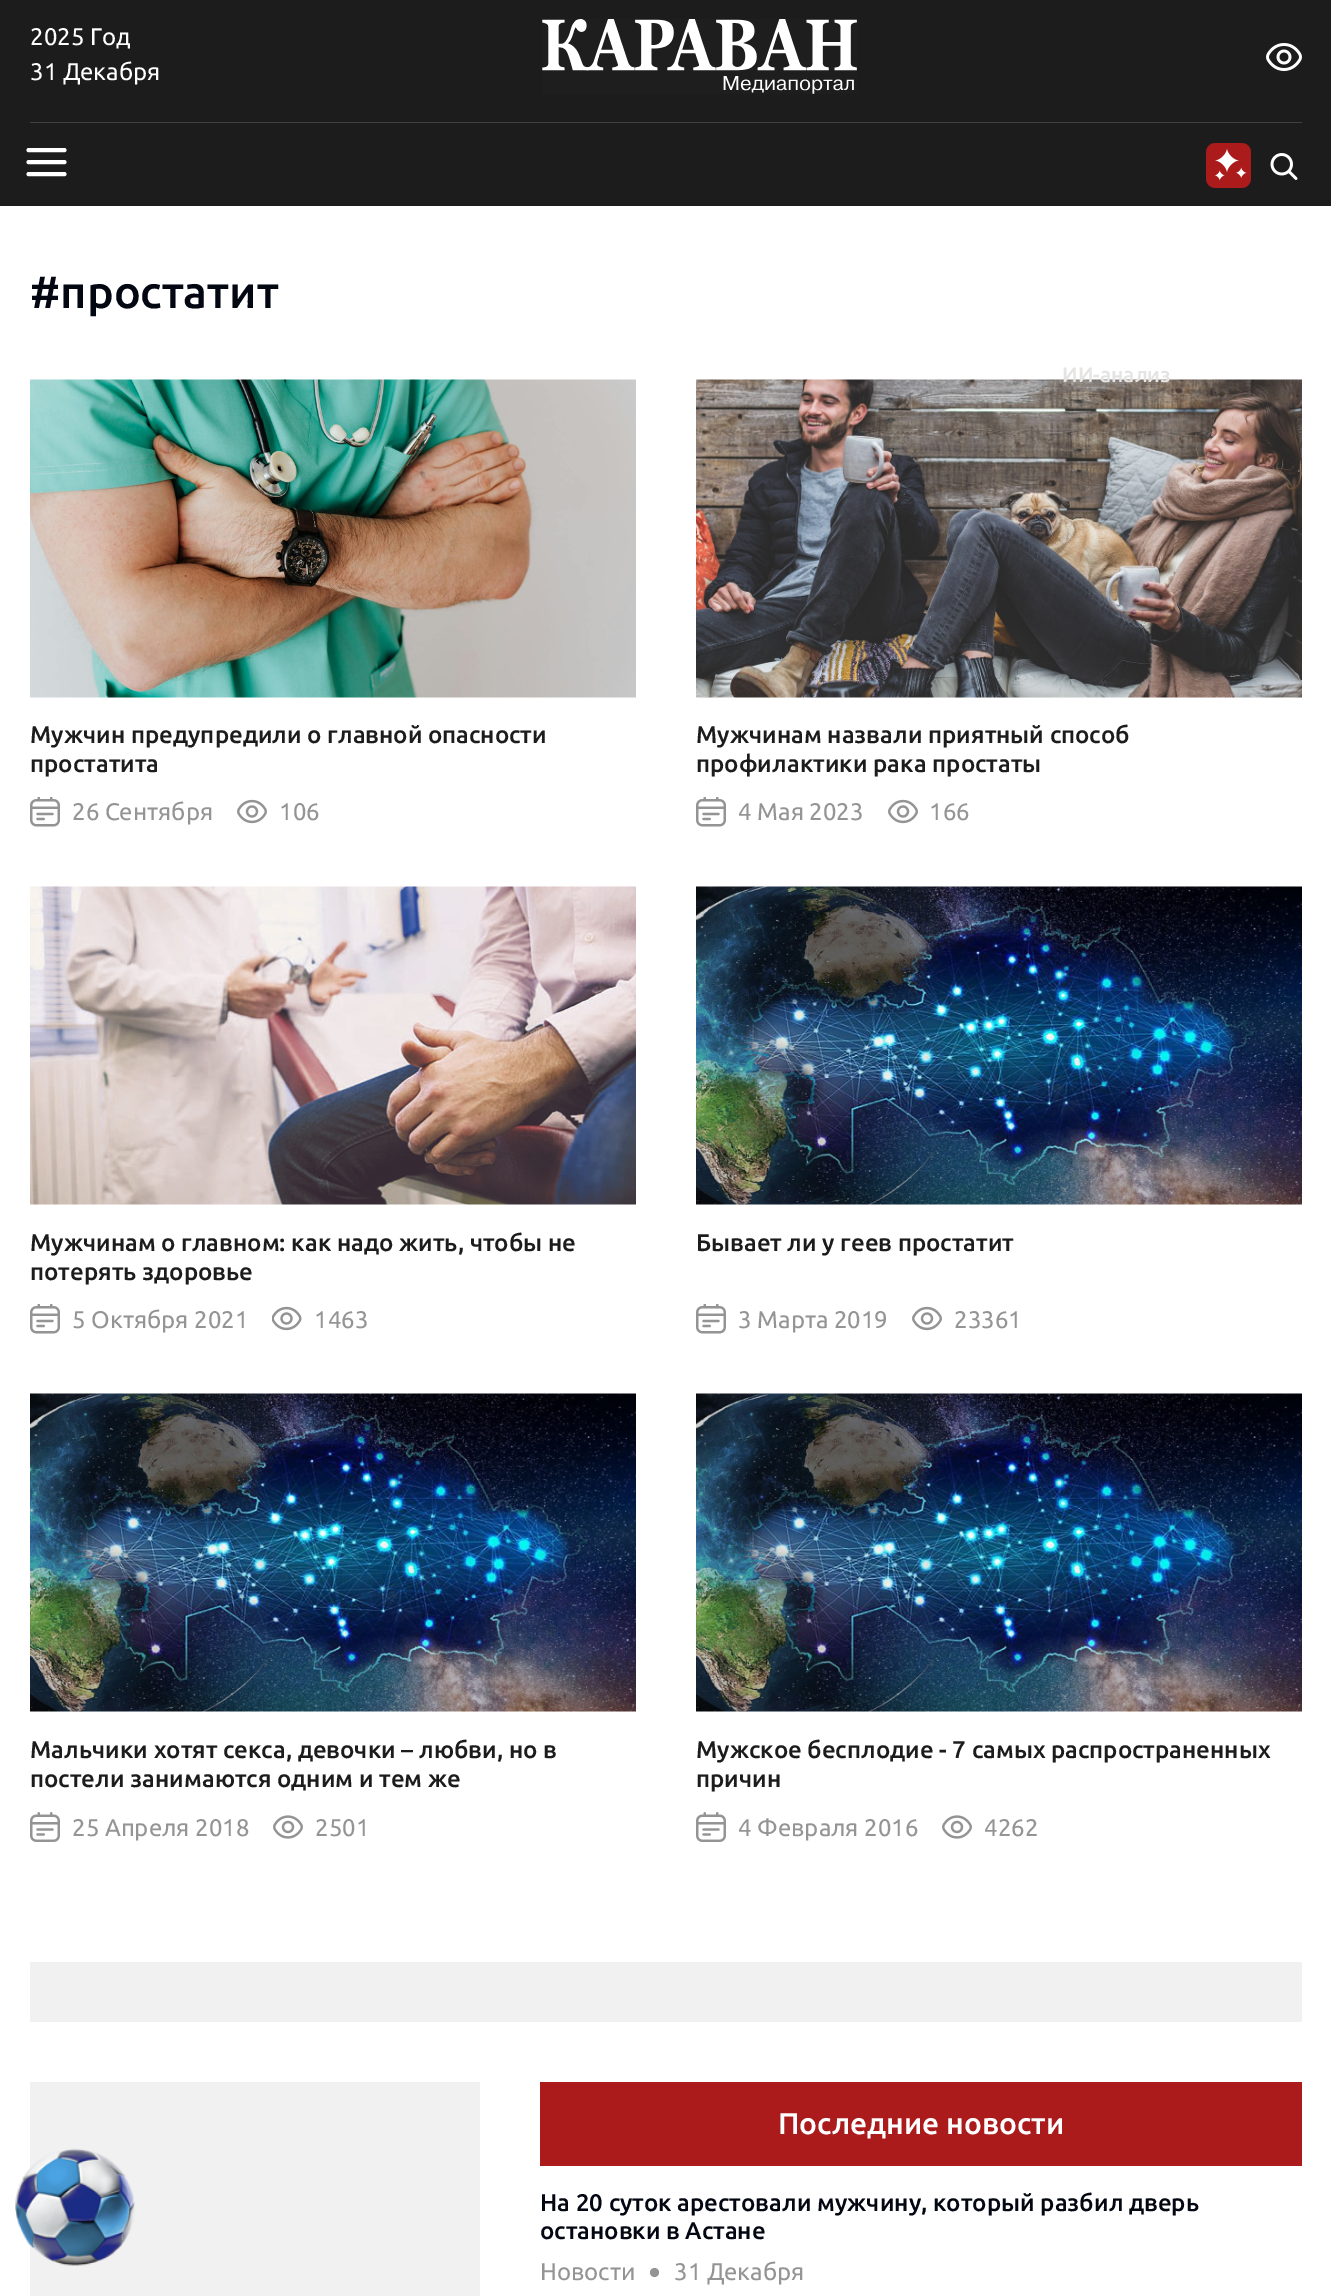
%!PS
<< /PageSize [1331 2296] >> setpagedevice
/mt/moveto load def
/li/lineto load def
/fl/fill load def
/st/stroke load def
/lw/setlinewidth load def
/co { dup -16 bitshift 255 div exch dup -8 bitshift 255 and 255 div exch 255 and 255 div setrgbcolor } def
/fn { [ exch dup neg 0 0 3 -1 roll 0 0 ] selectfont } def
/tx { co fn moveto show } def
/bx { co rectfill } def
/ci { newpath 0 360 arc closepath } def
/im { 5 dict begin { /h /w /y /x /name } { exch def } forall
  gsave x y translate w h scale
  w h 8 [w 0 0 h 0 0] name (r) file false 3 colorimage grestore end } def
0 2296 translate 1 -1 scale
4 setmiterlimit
0 0 1331 2296 16#FFFFFF bx
0 0 1331 206 16#1C1C1C bx
(media/1.raw) 542 19 315 75 im
(media/2.raw) 1266 43 36 28 im
30 122 1272 1 16#404040 bx
(media/3.raw) 30 379 606 319 im
(media/4.raw) 30 797 30 30 im
(media/5.raw) 237 799 30 25 im
(media/6.raw) 696 379 606 319 im
(media/4.raw) 696 797 30 30 im
(media/5.raw) 888 799 30 25 im
(media/7.raw) 30 886 606 319 im
(media/4.raw) 30 1304 30 30 im
(media/8.raw) 272 1306 30 25 im
(media/9.raw) 696 886 606 319 im
(media/4.raw) 696 1304 30 30 im
(media/5.raw) 912 1306 30 25 im
(media/10.raw) 30 1393 606 319 im
(media/11.raw) 30 1812 30 30 im
(media/12.raw) 273 1815 30 24 im
(media/13.raw) 696 1393 606 319 im
(media/11.raw) 696 1812 30 30 im
(media/12.raw) 942 1815 30 24 im
30 1962 1272 60 16#F1F1F1 bx
30 2082 450 214 16#F1F1F1 bx
540 2082 762 84 16#AB1B1B bx
16#949494 co
654.5 2272.5 4.5 ci fl
16#FFFFFF co
4 lw
1 setlinecap
1 setlinejoin
28.5 162 mt 64.5 162 li 28.5 150 mt 64.5 150 li 28.5 174 mt 64.5 174 li st
(media/14.raw) 1206 143 45 45 im
(media/15.raw) 1270 153 28 27 im
(media/16.raw) 15 2148 120 118 im
(2025 Год) 30 45 /Ubuntu-Regular 24 16#FFFFFF tx
(31 Декабря) 30 80 /Ubuntu-Regular 24 16#FFFFFF tx
(#простатит) 30 308 /Ubuntu-Medium 45 16#030712 tx
(Мужчин предупредили о главной опасности) 30 743 /Ubuntu-Medium 24 16#1C1C1C tx
(простатита) 30 772 /Ubuntu-Medium 24 16#1C1C1C tx
(26 Сентября) 72 820 /Ubuntu-Regular 24 16#949494 tx
(106) 279 820 /Ubuntu-Regular 24 16#949494 tx
(Мужчинам назвали приятный способ) 696 743 /Ubuntu-Medium 24 16#1C1C1C tx
(профилактики рака простаты) 696 772 /Ubuntu-Medium 24 16#1C1C1C tx
(4 Мая 2023) 738 820 /Ubuntu-Regular 24 16#949494 tx
(166) 929 820 /Ubuntu-Regular 24 16#949494 tx
(Мужчинам о главном: как надо жить, чтобы не) 30 1251 /Ubuntu-Medium 24 16#1C1C1C tx
(потерять здоровье) 30 1280 /Ubuntu-Medium 24 16#1C1C1C tx
(5 Октября 2021) 72 1328 /Ubuntu-Regular 24 16#949494 tx
(1463) 314 1328 /Ubuntu-Regular 24 16#949494 tx
(Бывает ли у геев простатит) 696 1251 /Ubuntu-Medium 24 16#1C1C1C tx
(3 Марта 2019) 738 1328 /Ubuntu-Regular 24 16#949494 tx
(23361) 954 1328 /Ubuntu-Regular 24 16#949494 tx
(Мальчики хотят секса, девочки – любви, но в) 30 1758 /Ubuntu-Medium 24 16#1C1C1C tx
(постели занимаются одним и тем же) 30 1787 /Ubuntu-Medium 24 16#1C1C1C tx
(25 Апреля 2018) 72 1836 /Ubuntu-Regular 24 16#949494 tx
(2501) 315 1836 /Ubuntu-Regular 24 16#949494 tx
(Мужское бесплодие - 7 самых распространенных) 696 1758 /Ubuntu-Medium 24 16#1C1C1C tx
(причин) 696 1787 /Ubuntu-Medium 24 16#1C1C1C tx
(4 Февраля 2016) 738 1836 /Ubuntu-Regular 24 16#949494 tx
(4262) 984 1836 /Ubuntu-Regular 24 16#949494 tx
(Последние новости) 778 2134 /Ubuntu-Medium 30 16#FFFFFF tx
(На 20 суток арестовали мужчину, который разбил дверь) 540 2211 /Ubuntu-Medium 24 16#030712 tx
(остановки в Астане) 540 2239 /Ubuntu-Medium 24 16#030712 tx
(Новости) 540 2280 /Ubuntu-Regular 24 16#949494 tx
(31 Декабря) 674 2280 /Ubuntu-Regular 24 16#949494 tx
(ИИ-анализ) 1062 382 /Ubuntu-Medium 21 16#E5E4E3 tx
showpage
